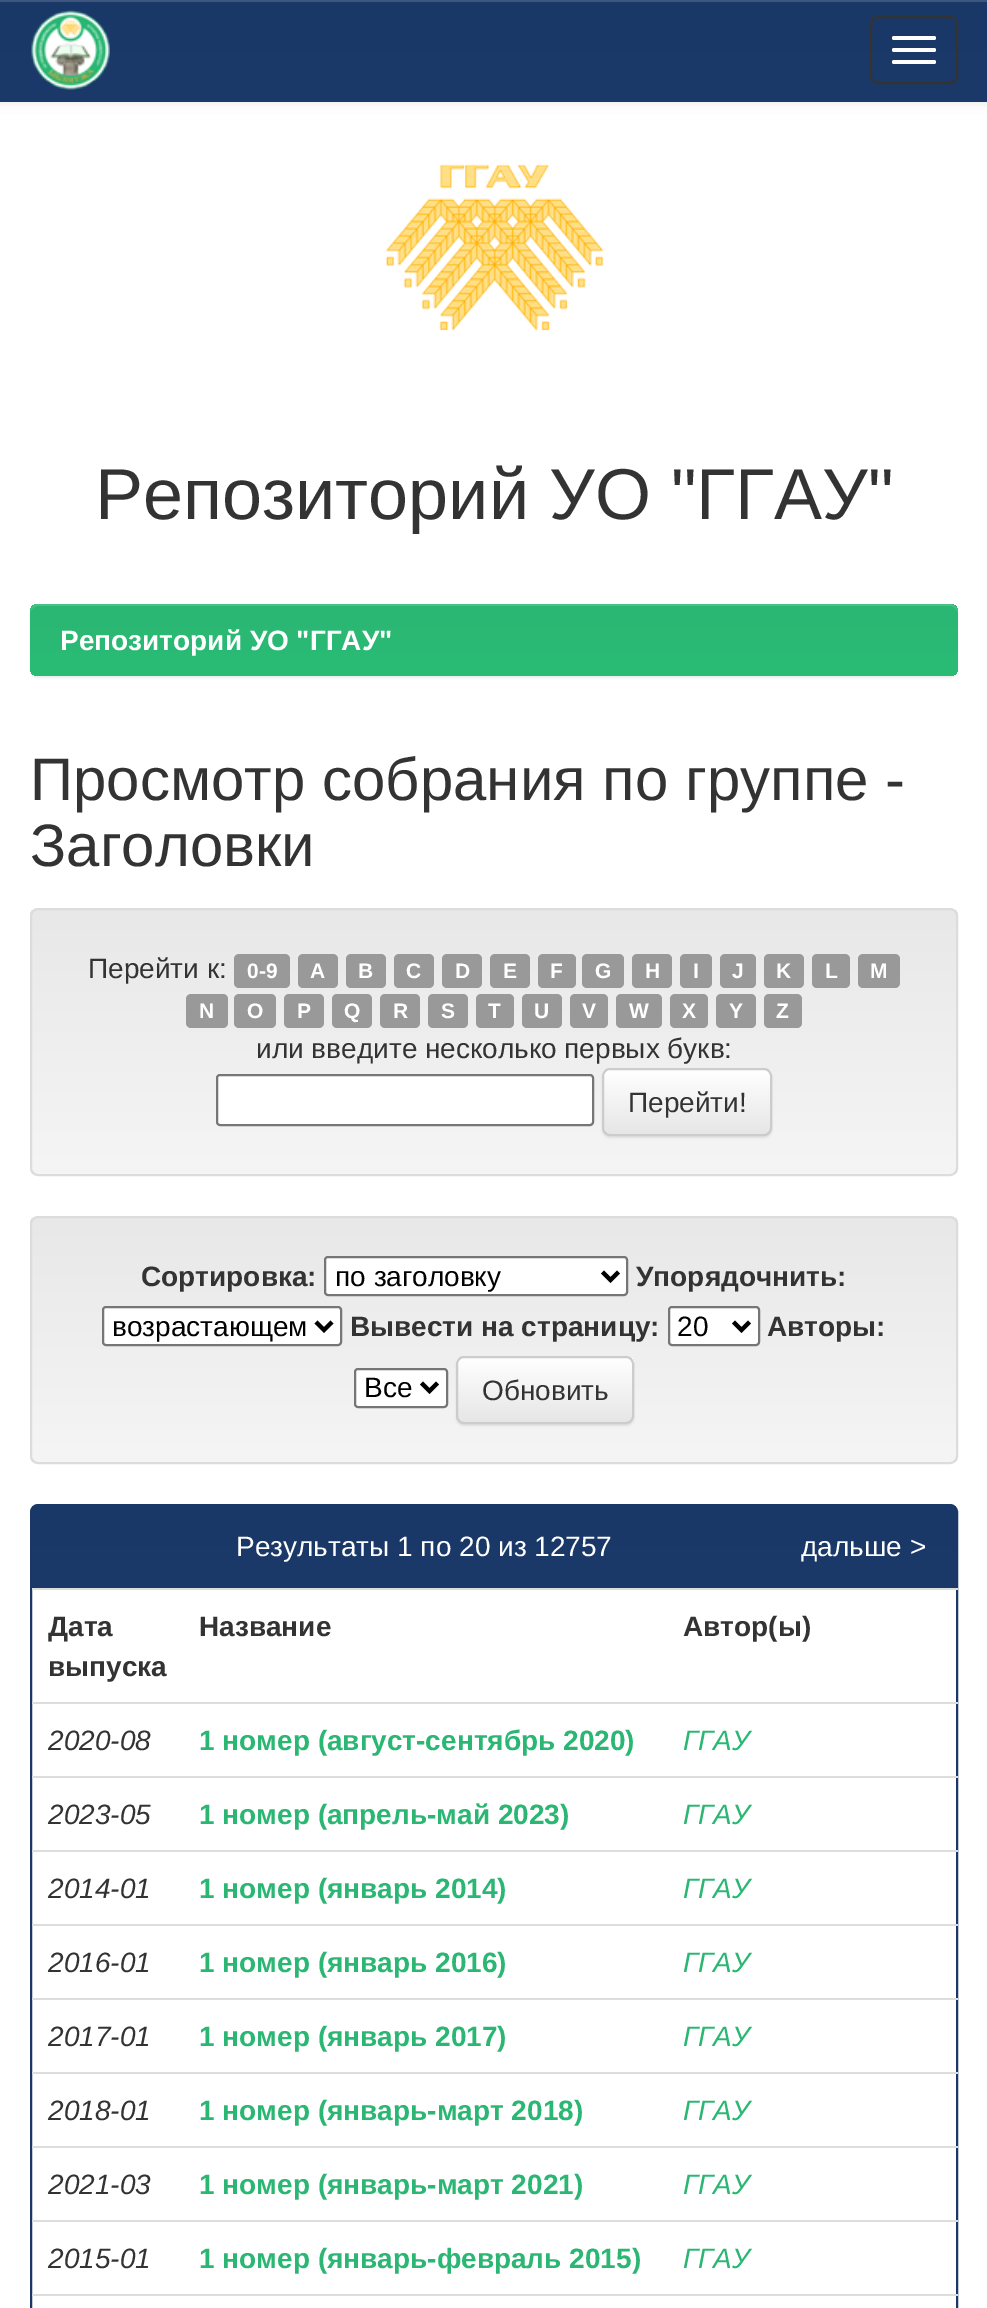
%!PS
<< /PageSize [987 2308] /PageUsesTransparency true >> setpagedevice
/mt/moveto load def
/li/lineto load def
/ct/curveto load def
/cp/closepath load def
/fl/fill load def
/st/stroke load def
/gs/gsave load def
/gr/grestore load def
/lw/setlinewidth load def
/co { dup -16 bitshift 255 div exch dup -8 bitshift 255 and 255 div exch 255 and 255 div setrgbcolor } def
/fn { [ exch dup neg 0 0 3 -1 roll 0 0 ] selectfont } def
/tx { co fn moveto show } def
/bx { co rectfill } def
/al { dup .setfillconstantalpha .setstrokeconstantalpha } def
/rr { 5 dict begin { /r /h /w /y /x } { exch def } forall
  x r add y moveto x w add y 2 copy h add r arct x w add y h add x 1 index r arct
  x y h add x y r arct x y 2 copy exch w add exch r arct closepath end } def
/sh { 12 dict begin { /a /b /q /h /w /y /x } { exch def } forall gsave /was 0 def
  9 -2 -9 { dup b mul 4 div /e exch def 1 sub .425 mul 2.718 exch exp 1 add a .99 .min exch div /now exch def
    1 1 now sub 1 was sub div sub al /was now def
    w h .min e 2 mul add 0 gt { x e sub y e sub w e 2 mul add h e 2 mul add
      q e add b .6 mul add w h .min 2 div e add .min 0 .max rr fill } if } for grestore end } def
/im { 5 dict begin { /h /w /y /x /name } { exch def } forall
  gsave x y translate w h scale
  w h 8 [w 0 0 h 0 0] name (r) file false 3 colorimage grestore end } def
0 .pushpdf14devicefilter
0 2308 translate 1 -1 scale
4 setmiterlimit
0 0 987 2308 16#FFFFFF bx
16#000000 co
0 2 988 102 0 5 .07 sh
gs 0 2 mt 987 2 li 987 100 li 0 100 li cp clip newpath
<< /ShadingType 2 /ColorSpace /DeviceRGB /Coords [494 0 494 100] /Extend [true true] /Function << /FunctionType 2 /Domain [0 1] /C0 [.102 .22 .404] /C1 [.102 .22 .412] /N 1 >> >> shfill gr
0 0 987 2 16#3C567E bx
0 100 987 2 16#1A3869 bx
(media/1.raw) 31 10 79 80 im
16#333333 co
2 lw
871 17 86 66 7 rr st
16#FFFFFF co
892 36 44 4 2 rr fl
892 48 44 4 2 rr fl
892 60 44 4 2 rr fl
(media/2.raw) 386 164 218 167 im
16#000000 co
30 606 928 72 8 1 .07 sh
gs 30 604 928 72 8 rr clip newpath
<< /ShadingType 2 /ColorSpace /DeviceRGB /Coords [494 604 494 676] /Extend [true true] /Function << /FunctionType 2 /Domain [0 1] /C0 [.169 .714 .451] /C1 [.161 .737 .459] /N 1 >> >> shfill gr
0.15 al
16#FFFFFF co
38 606 mt 950 606 li 954 606 958 610 958 614 ct 958 612 li 958 608 954 604 950 604 ct 38 604 li 34 604 30 608 30 612 ct 30 614 li 30 610 34 606 38 606 ct cp fl
gs
30 908 928 268 8 rr clip newpath
1 al
gs 30 910 mt 958 910 li 958 1174 li 30 1174 li cp clip newpath
<< /ShadingType 2 /ColorSpace /DeviceRGB /Coords [494 910 494 1174] /Extend [true true] /Function << /FunctionType 2 /Domain [0 1] /C0 [.91 .91 .91] /C1 [.961 .961 .961] /N 1 >> >> shfill gr
gr
1 al
16#DCDCDC co
31 909 926 266 7 rr st
16#999999 co
234 954 56 34 5 rr fl
298 954 40 34 5 rr fl
346 954 40 34 5 rr fl
394 954 40 34 5 rr fl
442 954 40 34 5 rr fl
490 954 40 34 5 rr fl
538 954 38 34 5 rr fl
582 954 42 34 5 rr fl
632 954 40 34 5 rr fl
680 954 32 34 5 rr fl
720 954 36 34 5 rr fl
764 954 40 34 5 rr fl
812 954 38 34 5 rr fl
858 954 42 34 5 rr fl
186 994 42 34 5 rr fl
234 994 42 34 5 rr fl
284 994 40 34 5 rr fl
332 994 40 34 5 rr fl
380 994 40 34 5 rr fl
428 994 40 34 5 rr fl
476 994 38 34 5 rr fl
522 994 40 34 5 rr fl
570 994 38 34 5 rr fl
616 994 46 34 5 rr fl
670 994 38 34 5 rr fl
716 994 40 34 5 rr fl
764 994 38 34 5 rr fl
16#FFFFFF co
217 1075 376 50 3 rr gs fl gr
16#767676 co
st
16#000000 co
602 1070 170 68 8 1 .07 sh
gs
602 1068 170 68 8 rr clip newpath
gs 602 1070 mt 772 1070 li 772 1134 li 602 1134 li cp clip newpath
<< /ShadingType 2 /ColorSpace /DeviceRGB /Coords [687 1070 687 1134] /Extend [true true] /Function << /FunctionType 2 /Domain [0 1] /C0 [1 1 1] /C1 [.902 .902 .902] /N 1 >> >> shfill gr
gr
16#CCCCCC co
603 1069 168 66 7 rr st
gs
30 1216 928 248 8 rr clip newpath
gs 30 1218 mt 958 1218 li 958 1462 li 30 1462 li cp clip newpath
<< /ShadingType 2 /ColorSpace /DeviceRGB /Coords [494 1218 494 1462] /Extend [true true] /Function << /FunctionType 2 /Domain [0 1] /C0 [.91 .91 .91] /C1 [.961 .961 .961] /N 1 >> >> shfill gr
gr
16#DCDCDC co
31 1217 926 246 7 rr st
16#FFFFFF co
325 1257 302 38 3 rr gs fl gr
16#767676 co
st
16#000000 co
4 lw
602.5 1272 mt 610.5 1280 li 618.5 1272 li st
16#FFFFFF co
103 1307 238 38 3 rr gs fl gr
16#767676 co
2 lw
st
16#000000 co
4 lw
316 1322 mt 324 1330 li 332 1322 li st
16#FFFFFF co
669 1307 90 38 3 rr gs fl gr
16#767676 co
2 lw
st
16#000000 co
4 lw
733.5 1322 mt 741.5 1330 li 749.5 1322 li st
16#FFFFFF co
355 1369 92 38 3 rr gs fl gr
16#767676 co
2 lw
st
16#000000 co
4 lw
421.5 1383 mt 429.5 1391 li 437.5 1383 li st
456 1358 178 68 8 1 .07 sh
gs
456 1356 178 68 8 rr clip newpath
gs 456 1358 mt 634 1358 li 634 1422 li 456 1422 li cp clip newpath
<< /ShadingType 2 /ColorSpace /DeviceRGB /Coords [545 1358 545 1422] /Extend [true true] /Function << /FunctionType 2 /Domain [0 1] /C0 [1 1 1] /C1 [.902 .902 .902] /N 1 >> >> shfill gr
gr
16#CCCCCC co
2 lw
457 1357 176 66 7 rr st
16#1A3867 co
31 1505 926 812 7 rr st
38 1506 mt 950 1506 li 953.5 1506 956 1508.5 956 1512 ct 956 1588 li 32 1588 li 32 1512 li 32 1508.5 34.5 1506 38 1506 ct cp fl
gs 38 1506 mt 950 1506 li 953.5 1506 956 1508.5 956 1512 ct 956 1586 li 32 1586 li 32 1512 li 32 1508.5 34.5 1506 38 1506 ct cp clip newpath
<< /ShadingType 2 /ColorSpace /DeviceRGB /Coords [494 1506 494 1586] /Extend [true true] /Function << /FunctionType 2 /Domain [0 1] /C0 [.102 .22 .404] /C1 [.102 .22 .412] /N 1 >> >> shfill gr
32 1588 926 2 16#DDDDDD bx
32 1702 926 2 16#DDDDDD bx
32 1776 926 2 16#DDDDDD bx
32 1850 926 2 16#DDDDDD bx
32 1924 926 2 16#DDDDDD bx
32 1998 926 2 16#DDDDDD bx
32 2072 926 2 16#DDDDDD bx
32 2146 926 2 16#DDDDDD bx
32 2220 926 2 16#DDDDDD bx
32 2294 926 2 16#DDDDDD bx
(Репозиторий УО "ГГАУ") 95 519 /LiberationSans-Regular 72 16#333333 tx
(Репозиторий УО "ГГАУ") 60 650 /LiberationSans-Bold 28 16#FFFFFF tx
(Просмотр собрания по группе -) 30 800 /LiberationSans-Regular 60 16#333333 tx
(Заголовки) 30 866 /LiberationSans-Regular 60 16#333333 tx
(Перейти к:) 88 978 /LiberationSans-Regular 28 16#333333 tx
(0-9) 247 978 /LiberationSans-Bold 21 16#FFFFFF tx
(A) 310 978 /LiberationSans-Bold 21 16#FFFFFF tx
(B) 358 978 /LiberationSans-Bold 21 16#FFFFFF tx
(C) 406 978 /LiberationSans-Bold 21 16#FFFFFF tx
(D) 455 978 /LiberationSans-Bold 21 16#FFFFFF tx
(E) 503 978 /LiberationSans-Bold 21 16#FFFFFF tx
(F) 550 978 /LiberationSans-Bold 21 16#FFFFFF tx
(G) 595 978 /LiberationSans-Bold 21 16#FFFFFF tx
(H) 645 978 /LiberationSans-Bold 21 16#FFFFFF tx
(I) 693 978 /LiberationSans-Bold 21 16#FFFFFF tx
(J) 732 978 /LiberationSans-Bold 21 16#FFFFFF tx
(K) 776 978 /LiberationSans-Bold 21 16#FFFFFF tx
(L) 825 978 /LiberationSans-Bold 21 16#FFFFFF tx
(M) 870 978 /LiberationSans-Bold 21 16#FFFFFF tx
(N) 199 1018 /LiberationSans-Bold 21 16#FFFFFF tx
(O) 247 1018 /LiberationSans-Bold 21 16#FFFFFF tx
(P) 297 1018 /LiberationSans-Bold 21 16#FFFFFF tx
(Q) 344 1018 /LiberationSans-Bold 21 16#FFFFFF tx
(R) 393 1018 /LiberationSans-Bold 21 16#FFFFFF tx
(S) 441 1018 /LiberationSans-Bold 21 16#FFFFFF tx
(T) 488 1018 /LiberationSans-Bold 21 16#FFFFFF tx
(U) 534 1018 /LiberationSans-Bold 21 16#FFFFFF tx
(V) 582 1018 /LiberationSans-Bold 21 16#FFFFFF tx
(W) 629 1018 /LiberationSans-Bold 21 16#FFFFFF tx
(X) 682 1018 /LiberationSans-Bold 21 16#FFFFFF tx
(Y) 729 1018 /LiberationSans-Bold 21 16#FFFFFF tx
(Z) 776 1018 /LiberationSans-Bold 21 16#FFFFFF tx
(или введите несколько первых букв:) 256 1058 /LiberationSans-Regular 28 16#333333 tx
(Перейти!) 628 1112 /LiberationSans-Regular 28 16#333333 tx
(Сортировка:) 141 1286 /LiberationSans-Bold 28 16#333333 tx
(по заголовку) 335 1286 /LiberationSans-Regular 28 16#000000 tx
(Упорядочнить:) 636 1286 /LiberationSans-Bold 28 16#333333 tx
(возрастающем) 112 1336 /LiberationSans-Regular 28 16#000000 tx
(Вывести на страницу:) 350 1336 /LiberationSans-Bold 28 16#333333 tx
(20) 677 1336 /LiberationSans-Regular 28 16#000000 tx
(Авторы:) 767 1336 /LiberationSans-Bold 28 16#333333 tx
(Все) 364 1397 /LiberationSans-Regular 28 16#000000 tx
(Обновить) 482 1400 /LiberationSans-Regular 28 16#333333 tx
(Результаты 1 по 20 из 12757) 236 1556 /LiberationSans-Regular 28 16#FFFFFF tx
(дальше >) 801 1556 /LiberationSans-Regular 28 16#FFFFFF tx
(Дата) 48 1636 /LiberationSans-Bold 28 16#333333 tx
(выпуска) 48 1676 /LiberationSans-Bold 28 16#333333 tx
(Название) 199 1636 /LiberationSans-Bold 28 16#333333 tx
(Автор\(ы\)) 683 1636 /LiberationSans-Bold 28 16#333333 tx
(2020-08) 48 1750 /LiberationSans-Italic 28 16#333333 tx
(1 номер \(август-сентябрь 2020\)) 199 1750 /LiberationSans-Bold 28 16#2BB673 tx
(ГГАУ) 683 1750 /LiberationSans-Italic 28 16#2BB673 tx
(2023-05) 48 1824 /LiberationSans-Italic 28 16#333333 tx
(1 номер \(апрель-май 2023\)) 199 1824 /LiberationSans-Bold 28 16#2BB673 tx
(ГГАУ) 683 1824 /LiberationSans-Italic 28 16#2BB673 tx
(2014-01) 48 1898 /LiberationSans-Italic 28 16#333333 tx
(1 номер \(январь 2014\)) 199 1898 /LiberationSans-Bold 28 16#2BB673 tx
(ГГАУ) 683 1898 /LiberationSans-Italic 28 16#2BB673 tx
(2016-01) 48 1972 /LiberationSans-Italic 28 16#333333 tx
(1 номер \(январь 2016\)) 199 1972 /LiberationSans-Bold 28 16#2BB673 tx
(ГГАУ) 683 1972 /LiberationSans-Italic 28 16#2BB673 tx
(2017-01) 48 2046 /LiberationSans-Italic 28 16#333333 tx
(1 номер \(январь 2017\)) 199 2046 /LiberationSans-Bold 28 16#2BB673 tx
(ГГАУ) 683 2046 /LiberationSans-Italic 28 16#2BB673 tx
(2018-01) 48 2120 /LiberationSans-Italic 28 16#333333 tx
(1 номер \(январь-март 2018\)) 199 2120 /LiberationSans-Bold 28 16#2BB673 tx
(ГГАУ) 683 2120 /LiberationSans-Italic 28 16#2BB673 tx
(2021-03) 48 2194 /LiberationSans-Italic 28 16#333333 tx
(1 номер \(январь-март 2021\)) 199 2194 /LiberationSans-Bold 28 16#2BB673 tx
(ГГАУ) 683 2194 /LiberationSans-Italic 28 16#2BB673 tx
(2015-01) 48 2268 /LiberationSans-Italic 28 16#333333 tx
(1 номер \(январь-февраль 2015\)) 199 2268 /LiberationSans-Bold 28 16#2BB673 tx
(ГГАУ) 683 2268 /LiberationSans-Italic 28 16#2BB673 tx
.poppdf14devicefilter showpage
